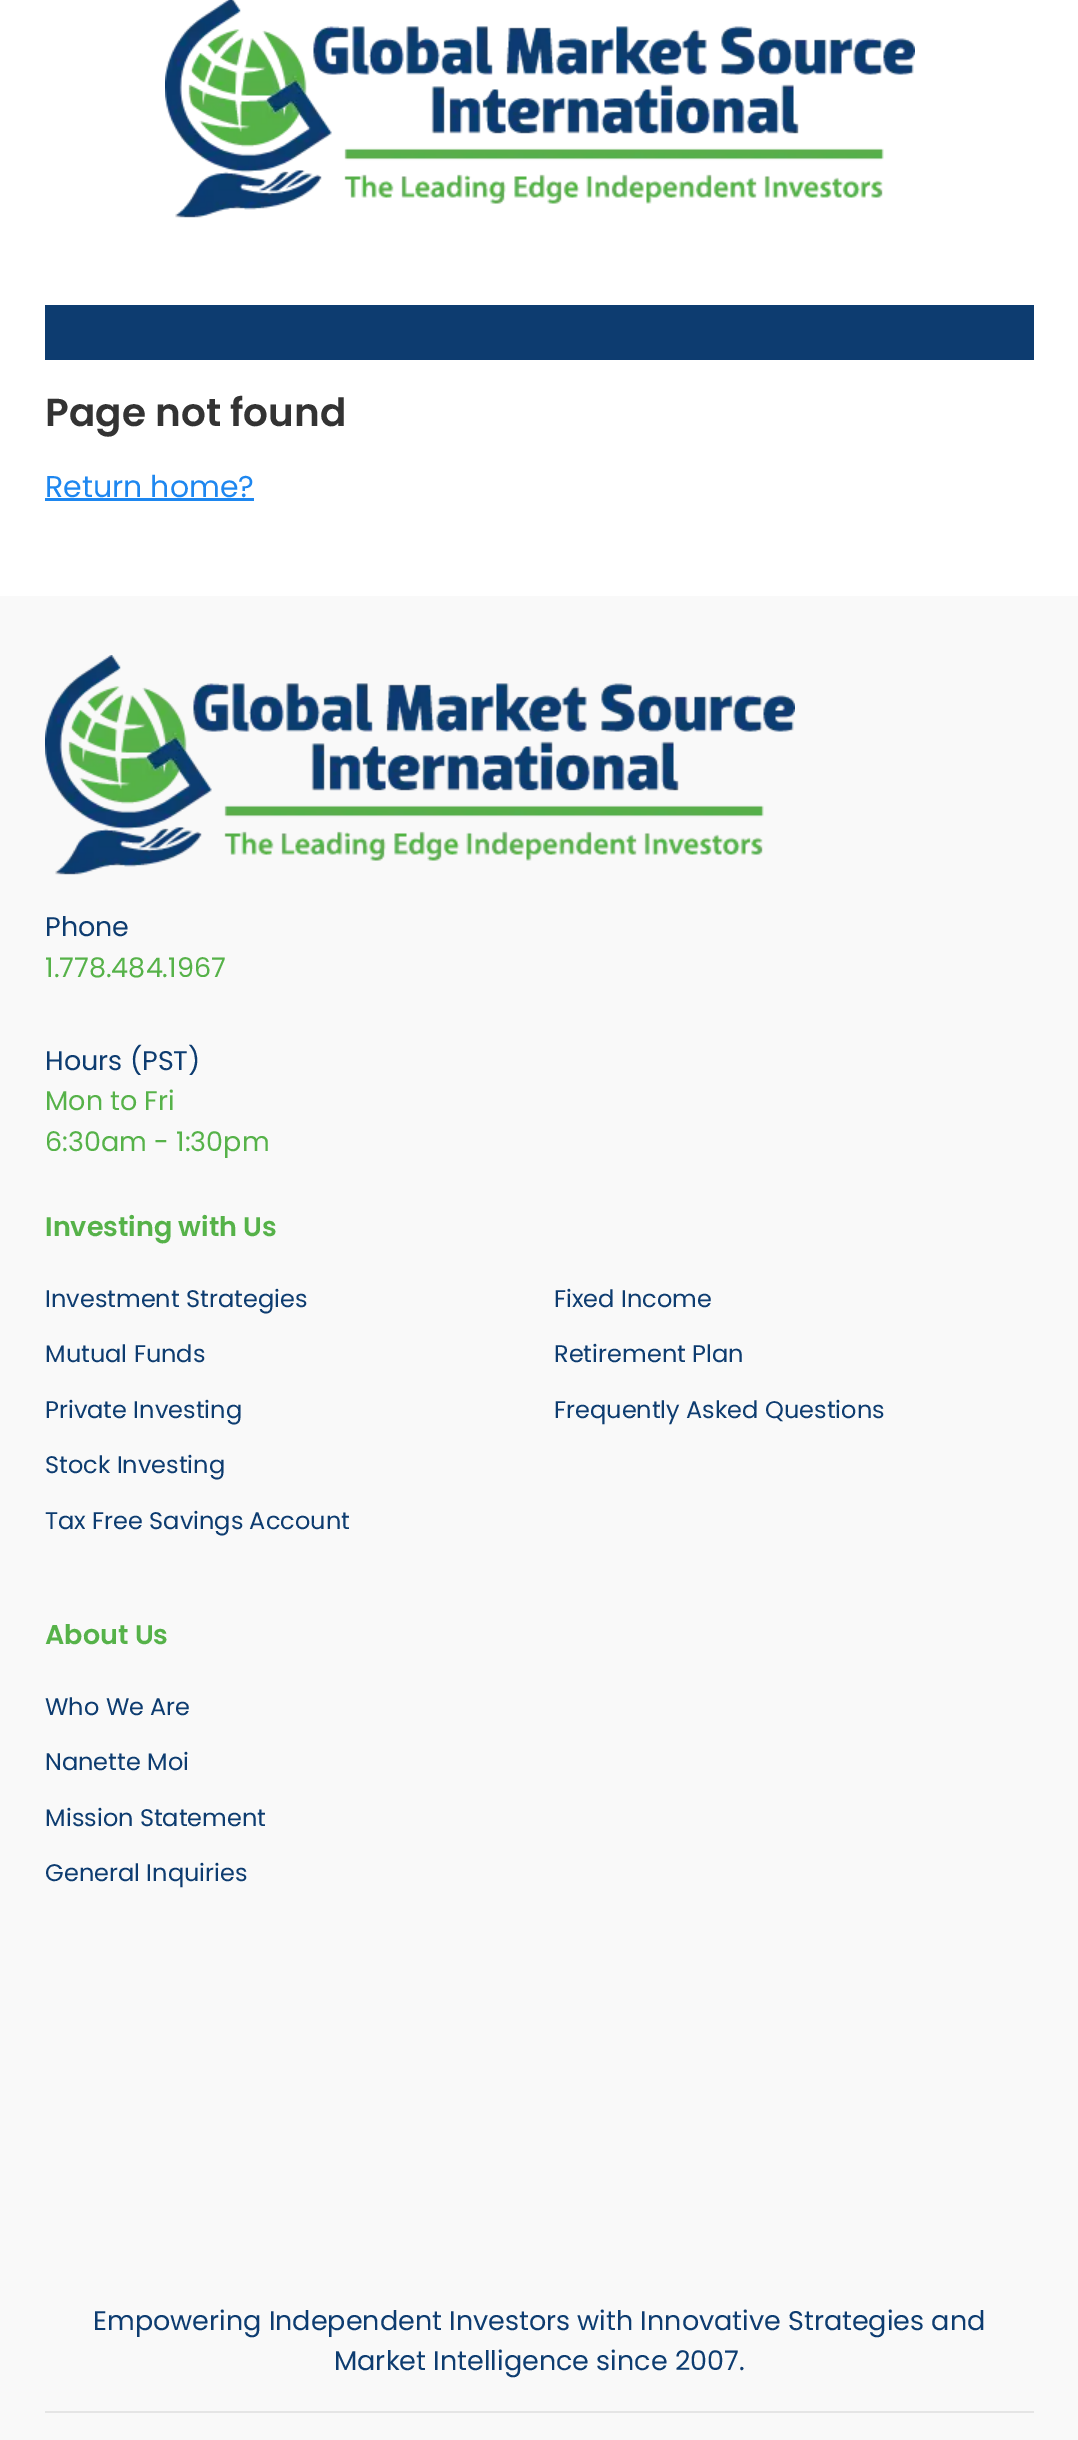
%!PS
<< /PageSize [1078 2440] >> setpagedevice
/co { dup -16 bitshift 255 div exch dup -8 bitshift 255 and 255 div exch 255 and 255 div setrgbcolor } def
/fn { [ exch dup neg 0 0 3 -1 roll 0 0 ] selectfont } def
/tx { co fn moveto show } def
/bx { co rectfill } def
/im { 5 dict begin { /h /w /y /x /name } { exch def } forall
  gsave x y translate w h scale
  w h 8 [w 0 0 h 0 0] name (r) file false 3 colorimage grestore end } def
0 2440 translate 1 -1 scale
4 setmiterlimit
0 0 1078 2440 16#FFFFFF bx
(media/1.raw) 165 0 750 218 im
45 305 989 55 16#0D3C70 bx
45 498 209 3 16#1E87F0 bx
0 596 1078 1844 16#F9F9F9 bx
(media/2.raw) 45 655 750 220 im
45 2411 989 2 16#E5E5E5 bx
(Page not found) 45 426 /Poppins-SemiBold 39 16#333333 tx
(Return home?) 45 497 /Poppins-Regular 30 16#1E87F0 tx
(Phone) 45 936 /Poppins-Regular 27 16#0D3C70 tx
(1.778.484.1967) 45 977 /Poppins-Regular 27 16#56B249 tx
(Hours \(PST\)) 45 1070 /Poppins-Regular 27 16#0D3C70 tx
(Mon to Fri) 45 1110 /Poppins-Regular 27 16#56B249 tx
(6:30am - 1:30pm) 45 1151 /Poppins-Regular 27 16#56B249 tx
(Investing with Us) 45 1236 /Poppins-SemiBold 27 16#56B249 tx
(Investment Strategies) 45 1307 /Poppins-Regular 24 16#0D3C70 tx
(Mutual Funds) 45 1362 /Poppins-Regular 24 16#0D3C70 tx
(Private Investing) 45 1418 /Poppins-Regular 24 16#0D3C70 tx
(Stock Investing) 45 1473 /Poppins-Regular 24 16#0D3C70 tx
(Tax Free Savings Account) 45 1529 /Poppins-Regular 24 16#0D3C70 tx
(Fixed Income) 554 1307 /Poppins-Regular 24 16#0D3C70 tx
(Retirement Plan) 554 1362 /Poppins-Regular 24 16#0D3C70 tx
(Frequently Asked Questions) 554 1418 /Poppins-Regular 24 16#0D3C70 tx
(About Us) 45 1644 /Poppins-SemiBold 27 16#56B249 tx
(Who We Are) 45 1715 /Poppins-Regular 24 16#0D3C70 tx
(Nanette Moi) 45 1770 /Poppins-Regular 24 16#0D3C70 tx
(Mission Statement) 45 1826 /Poppins-Regular 24 16#0D3C70 tx
(General Inquiries) 45 1881 /Poppins-Regular 24 16#0D3C70 tx
(Empowering Independent Investors with Innovative Strategies and) 93 2330 /Poppins-Regular 27 16#0D3C70 tx
(Market Intelligence since 2007.) 334 2370 /Poppins-Regular 27 16#0D3C70 tx
showpage
